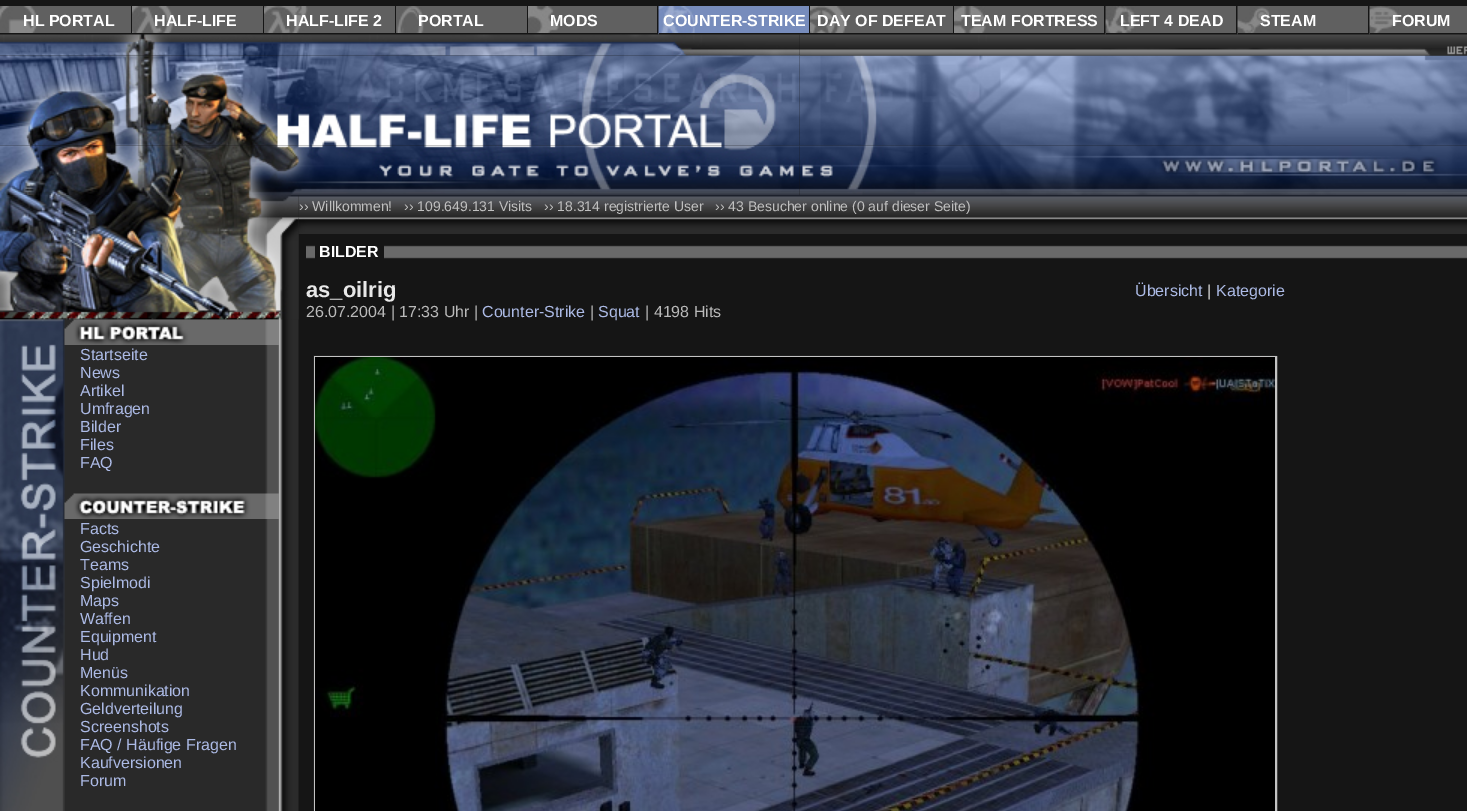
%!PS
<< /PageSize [1467 811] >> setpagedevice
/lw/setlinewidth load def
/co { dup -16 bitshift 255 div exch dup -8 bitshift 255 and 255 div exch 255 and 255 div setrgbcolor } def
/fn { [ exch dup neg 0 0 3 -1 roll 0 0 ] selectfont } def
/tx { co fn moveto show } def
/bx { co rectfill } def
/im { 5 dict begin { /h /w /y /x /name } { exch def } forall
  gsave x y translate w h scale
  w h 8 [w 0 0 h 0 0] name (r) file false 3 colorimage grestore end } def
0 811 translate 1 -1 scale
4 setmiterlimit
0 0 1467 811 16#151515 bx
38 6 93 27 16#606060 bx
(media/1.raw) 0 6 38 27 im
173 6 90 27 16#606060 bx
(media/2.raw) 132 6 41 27 im
308 6 87 27 16#606060 bx
(media/3.raw) 264 6 44 27 im
396 6 131 27 16#606060 bx
(media/4.raw) 397 6 27 27 im
559 6 98 27 16#606060 bx
(media/5.raw) 528 6 31 27 im
695 6 114 27 16#778CBC bx
(media/6.raw) 658 6 37 29 im
659 33 36 2 16#151515 bx
846 6 107 27 16#606060 bx
(media/7.raw) 810 6 36 27 im
986 6 118 27 16#606060 bx
(media/8.raw) 954 6 32 27 im
1136 6 100 27 16#606060 bx
(media/9.raw) 1105 6 31 29 im
1106 33 30 2 16#151515 bx
1270 6 98 27 16#606060 bx
(media/10.raw) 1237 6 33 29 im
1238 33 32 2 16#151515 bx
1399 6 68 27 16#606060 bx
(media/11.raw) 1369 6 30 29 im
1370 33 29 2 16#151515 bx
(media/15.raw) 799 55 668 91 im
(media/12.raw) 0 34 800 22 im
(media/13.raw) 799 34 668 22 im
(media/14.raw) 0 55 800 91 im
(media/16.raw) 0 145 800 50 im
(media/17.raw) 799 145 668 50 im
(media/24.raw) 0 195 299 616 im
(media/18.raw) 298 195 1169 23 im
(media/25.raw) 0 195 299 125 im
(media/19.raw) 298 217 1169 17 im
(media/20.raw) 306 245 9 14 im
(media/21.raw) 384 245 1083 14 im
(media/22.raw) 313 355 964 456 im
16#C3C3C3 co
2 lw
315 357 961 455 rectstroke
(media/23.raw) 315 357 960 454 im
(media/26.raw) 0 319 65 492 im
(media/27.raw) 64 319 215 26 im
(media/28.raw) 64 493 215 26 im
(HL PORTAL) 23 26 /LiberationSans-Bold 16 16#FFFFFF tx
(HALF-LIFE) 154 26 /LiberationSans-Bold 16 16#FFFFFF tx
(HALF-LIFE 2) 286 26 /LiberationSans-Bold 16 16#FFFFFF tx
(PORTAL) 418 26 /LiberationSans-Bold 16 16#FFFFFF tx
(MODS) 550 26 /LiberationSans-Bold 16 16#FFFFFF tx
(COUNTER-STRIKE) 663 26 /LiberationSans-Bold 16 16#FFFFFF tx
(DAY OF DEFEAT) 817 26 /LiberationSans-Bold 16 16#FFFFFF tx
(TEAM FORTRESS) 961 26 /LiberationSans-Bold 16 16#FFFFFF tx
(LEFT 4 DEAD) 1120 26 /LiberationSans-Bold 16 16#FFFFFF tx
(STEAM) 1260 26 /LiberationSans-Bold 16 16#FFFFFF tx
(FORUM) 1392 26 /LiberationSans-Bold 16 16#FFFFFF tx
(›› Willkommen!   ›› 109.649.131 Visits   ›› 18.314 registrierte User   ›› 43 Besucher online \(0 auf dieser Seite\)) 299 211 /LiberationSans-Regular 14 16#C0C0C0 tx
(BILDER) 319 257 /LiberationSans-Bold 16 16#FFFFFF tx
(as_oilrig) 306 297 /LiberationSans-Bold 22 16#E8E8E8 tx
(Übersicht) 1135 296 /LiberationSans-Regular 16 16#ACBAE5 tx
(|) 1207 296 /LiberationSans-Regular 16 16#E0E0E0 tx
(Kategorie) 1216 296 /LiberationSans-Regular 16 16#ACBAE5 tx
(26.07.2004 | 17:33 Uhr |) 306 317 /LiberationSans-Regular 16 16#B9B9B9 tx
(Counter-Strike) 482 317 /LiberationSans-Regular 16 16#ACBAE5 tx
(|) 590 317 /LiberationSans-Regular 16 16#B9B9B9 tx
(Squat) 598 317 /LiberationSans-Regular 16 16#ACBAE5 tx
(| 4198 Hits) 645 317 /LiberationSans-Regular 16 16#B9B9B9 tx
(Startseite) 80 360 /LiberationSans-Regular 16 16#ACBAE5 tx
(News) 80 378 /LiberationSans-Regular 16 16#ACBAE5 tx
(Artikel) 80 396 /LiberationSans-Regular 16 16#ACBAE5 tx
(Umfragen) 80 414 /LiberationSans-Regular 16 16#ACBAE5 tx
(Bilder) 80 432 /LiberationSans-Regular 16 16#ACBAE5 tx
(Files) 80 450 /LiberationSans-Regular 16 16#ACBAE5 tx
(FAQ) 80 468 /LiberationSans-Regular 16 16#ACBAE5 tx
(Facts) 80 534 /LiberationSans-Regular 16 16#ACBAE5 tx
(Geschichte) 80 552 /LiberationSans-Regular 16 16#ACBAE5 tx
(Teams) 80 570 /LiberationSans-Regular 16 16#ACBAE5 tx
(Spielmodi) 80 588 /LiberationSans-Regular 16 16#ACBAE5 tx
(Maps) 80 606 /LiberationSans-Regular 16 16#ACBAE5 tx
(Waffen) 80 624 /LiberationSans-Regular 16 16#ACBAE5 tx
(Equipment) 80 642 /LiberationSans-Regular 16 16#ACBAE5 tx
(Hud) 80 660 /LiberationSans-Regular 16 16#ACBAE5 tx
(Menüs) 80 678 /LiberationSans-Regular 16 16#ACBAE5 tx
(Kommunikation) 80 696 /LiberationSans-Regular 16 16#ACBAE5 tx
(Geldverteilung) 80 714 /LiberationSans-Regular 16 16#ACBAE5 tx
(Screenshots) 80 732 /LiberationSans-Regular 16 16#ACBAE5 tx
(FAQ / Häufige Fragen) 80 750 /LiberationSans-Regular 16 16#ACBAE5 tx
(Kaufversionen) 80 768 /LiberationSans-Regular 16 16#ACBAE5 tx
(Forum) 80 786 /LiberationSans-Regular 16 16#ACBAE5 tx
showpage
